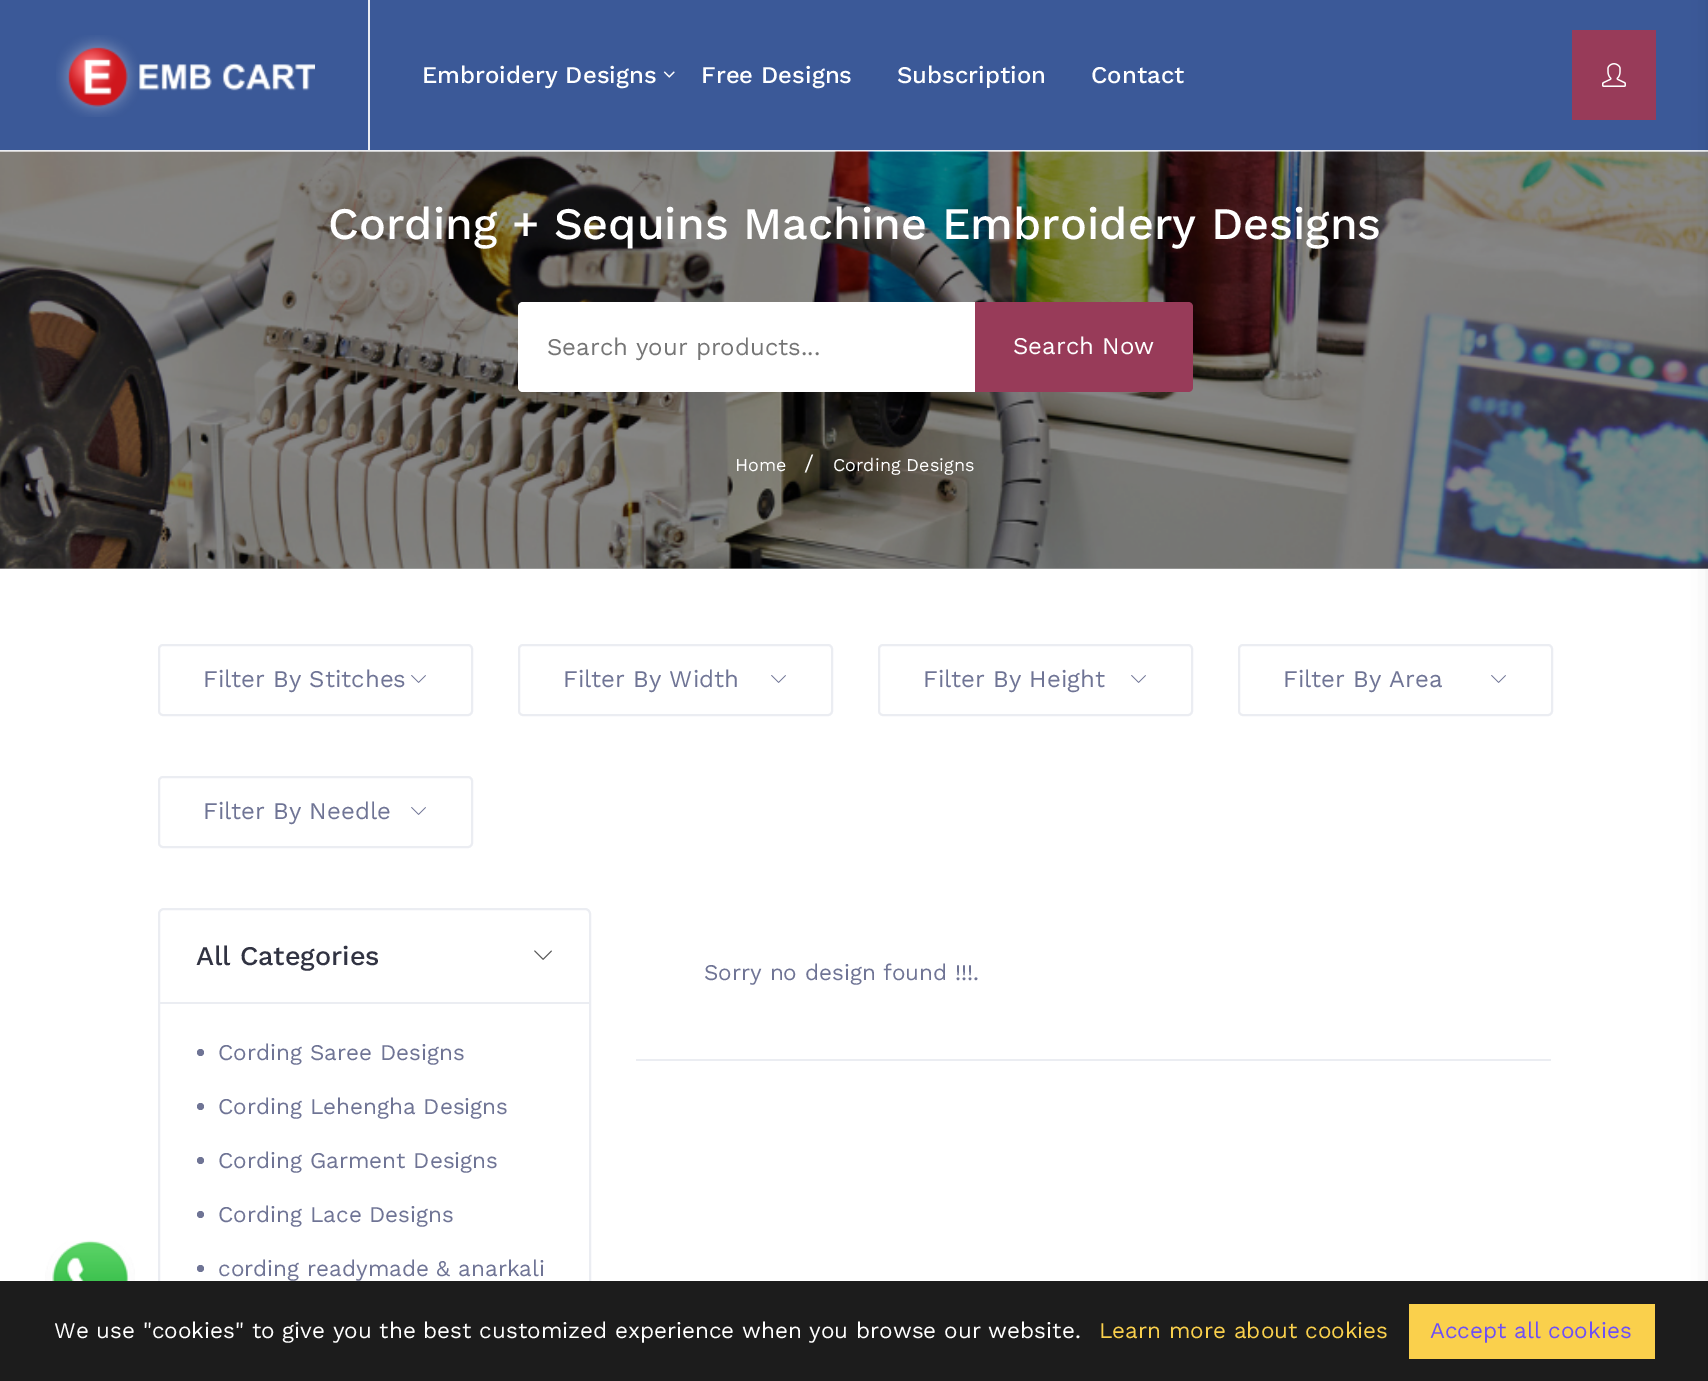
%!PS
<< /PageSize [1708 1381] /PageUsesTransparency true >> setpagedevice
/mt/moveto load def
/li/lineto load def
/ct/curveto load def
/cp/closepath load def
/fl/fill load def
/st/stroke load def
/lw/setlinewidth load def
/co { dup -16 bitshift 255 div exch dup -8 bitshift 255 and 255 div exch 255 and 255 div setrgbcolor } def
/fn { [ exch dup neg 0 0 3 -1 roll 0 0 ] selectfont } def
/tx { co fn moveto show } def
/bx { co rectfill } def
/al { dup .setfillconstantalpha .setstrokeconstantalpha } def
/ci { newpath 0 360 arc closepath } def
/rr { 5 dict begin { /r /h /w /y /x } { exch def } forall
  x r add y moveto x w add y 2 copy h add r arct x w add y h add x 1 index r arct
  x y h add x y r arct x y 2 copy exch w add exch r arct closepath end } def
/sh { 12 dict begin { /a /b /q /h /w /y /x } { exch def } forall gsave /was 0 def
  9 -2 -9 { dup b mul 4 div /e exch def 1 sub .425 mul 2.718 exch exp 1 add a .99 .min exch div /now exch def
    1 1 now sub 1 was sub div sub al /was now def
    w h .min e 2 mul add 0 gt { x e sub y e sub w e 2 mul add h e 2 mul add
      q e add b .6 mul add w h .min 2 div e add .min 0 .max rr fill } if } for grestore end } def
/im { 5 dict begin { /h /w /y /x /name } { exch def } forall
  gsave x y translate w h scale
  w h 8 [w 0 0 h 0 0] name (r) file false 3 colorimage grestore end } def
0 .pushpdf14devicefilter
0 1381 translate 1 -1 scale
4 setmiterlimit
0 0 1708 1381 16#FFFFFF bx
0 568 1708 1 16#B3B3B3 bx
0 0 1708 150 16#3B5998 bx
0 150 1708 2 16#EBEDF2 bx
368 0 2 150 16#EBEDF2 bx
(media/1.raw) 56 35 259 82 im
(media/2.raw) 663 71 12 7 im
1572 30 84 90 16#983B59 bx
(media/3.raw) 1602 63 24 24 im
(media/4.raw) 0 151 1708 418 im
16#EBEDF2 co
2 lw
159 909 431 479 5 rr st
0 1281 1708 100 16#1C1C1C bx
16#000000 co
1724 -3 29 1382 0 15 .3 sh
16#FFFFFF co
523 302 mt 975 302 li 975 392 li 523 392 li 520 392 518 390 518 387 ct 518 307 li 518 304 520 302 523 302 ct cp fl
16#983B59 co
975 302 mt 1188 302 li 1191 302 1193 304 1193 307 ct 1193 387 li 1193 390 1191 392 1188 392 ct 975 392 li cp fl
16#EBEDF2 co
159 645 313 70 4 rr st
(media/5.raw) 411 675 15 8 im
519 645 313 70 4 rr st
(media/5.raw) 771 675 15 8 im
879 645 313 70 4 rr st
(media/5.raw) 1131 675 15 8 im
1239 645 313 70 4 rr st
(media/5.raw) 1491 675 15 8 im
159 777 313 70 4 rr st
(media/5.raw) 411 807 15 8 im
(media/6.raw) 45 1240 90 41 im
159 1002 431 2 16#EBEDF2 bx
(media/7.raw) 534 950 18 10 im
16#6F7495 co
200.5 1052.5 3.5 ci fl
200.5 1106.5 3.5 ci fl
200.5 1160.5 3.5 ci fl
200.5 1214.5 3.5 ci fl
200.5 1268.5 3.5 ci fl
636 1059 915 2 16#EBEDF2 bx
1409 1304 246 55 16#FAD04C bx
(Embroidery Designs) 422 83 /WorkSans-Medium 24 16#FFFFFF tx
(Free Designs) 701 83 /WorkSans-Medium 24 16#FFFFFF tx
(Subscription) 897 83 /WorkSans-Medium 24 16#FFFFFF tx
(Contact) 1091 83 /WorkSans-Medium 24 16#FFFFFF tx
(Cording + Sequins Machine Embroidery Designs) 328 239 /WorkSans-Medium 45 16#FFFFFF tx
(Search your products...) 547 355 /WorkSans-Regular 24 16#757575 tx
(Search Now) 1013 354 /WorkSans-Regular 24 16#FFFFFF tx
(Home) 735 471 /WorkSans-Regular 18 16#FFFFFF tx
(/) 804 471 /WorkSans-Regular 22.5 16#FFFFFF tx
(Cording Designs) 833 471 /WorkSans-Regular 18 16#FFFFFF tx
(Filter By Stitches) 203 687 /WorkSans-Regular 24 16#6F7495 tx
(Filter By Width) 563 687 /WorkSans-Regular 24 16#6F7495 tx
(Filter By Height) 923 687 /WorkSans-Regular 24 16#6F7495 tx
(Filter By Area) 1283 687 /WorkSans-Regular 24 16#6F7495 tx
(Filter By Needle) 203 819 /WorkSans-Regular 24 16#6F7495 tx
(All Categories) 196 965 /WorkSans-Medium 27 16#313342 tx
(Cording Saree Designs) 218 1060 /WorkSans-Regular 22.5 16#6F7495 tx
(Cording Lehengha Designs) 218 1114 /WorkSans-Regular 22.5 16#6F7495 tx
(Cording Garment Designs) 218 1168 /WorkSans-Regular 22.5 16#6F7495 tx
(Cording Lace Designs) 218 1222 /WorkSans-Regular 22.5 16#6F7495 tx
(cording readymade & anarkali) 218 1276 /WorkSans-Regular 22.5 16#6F7495 tx
(Sorry no design found !!!.) 704 980 /WorkSans-Regular 22.5 16#6F7495 tx
(We use "cookies" to give you the best customized experience when you browse our website.) 54 1338 /WorkSans-Regular 22.5 16#FFFFFF tx
(Learn more about cookies) 1099 1338 /WorkSans-Regular 22.5 16#FAD04C tx
(Accept all cookies) 1430 1338 /WorkSans-Regular 22.5 16#6E4FF6 tx
.poppdf14devicefilter showpage
